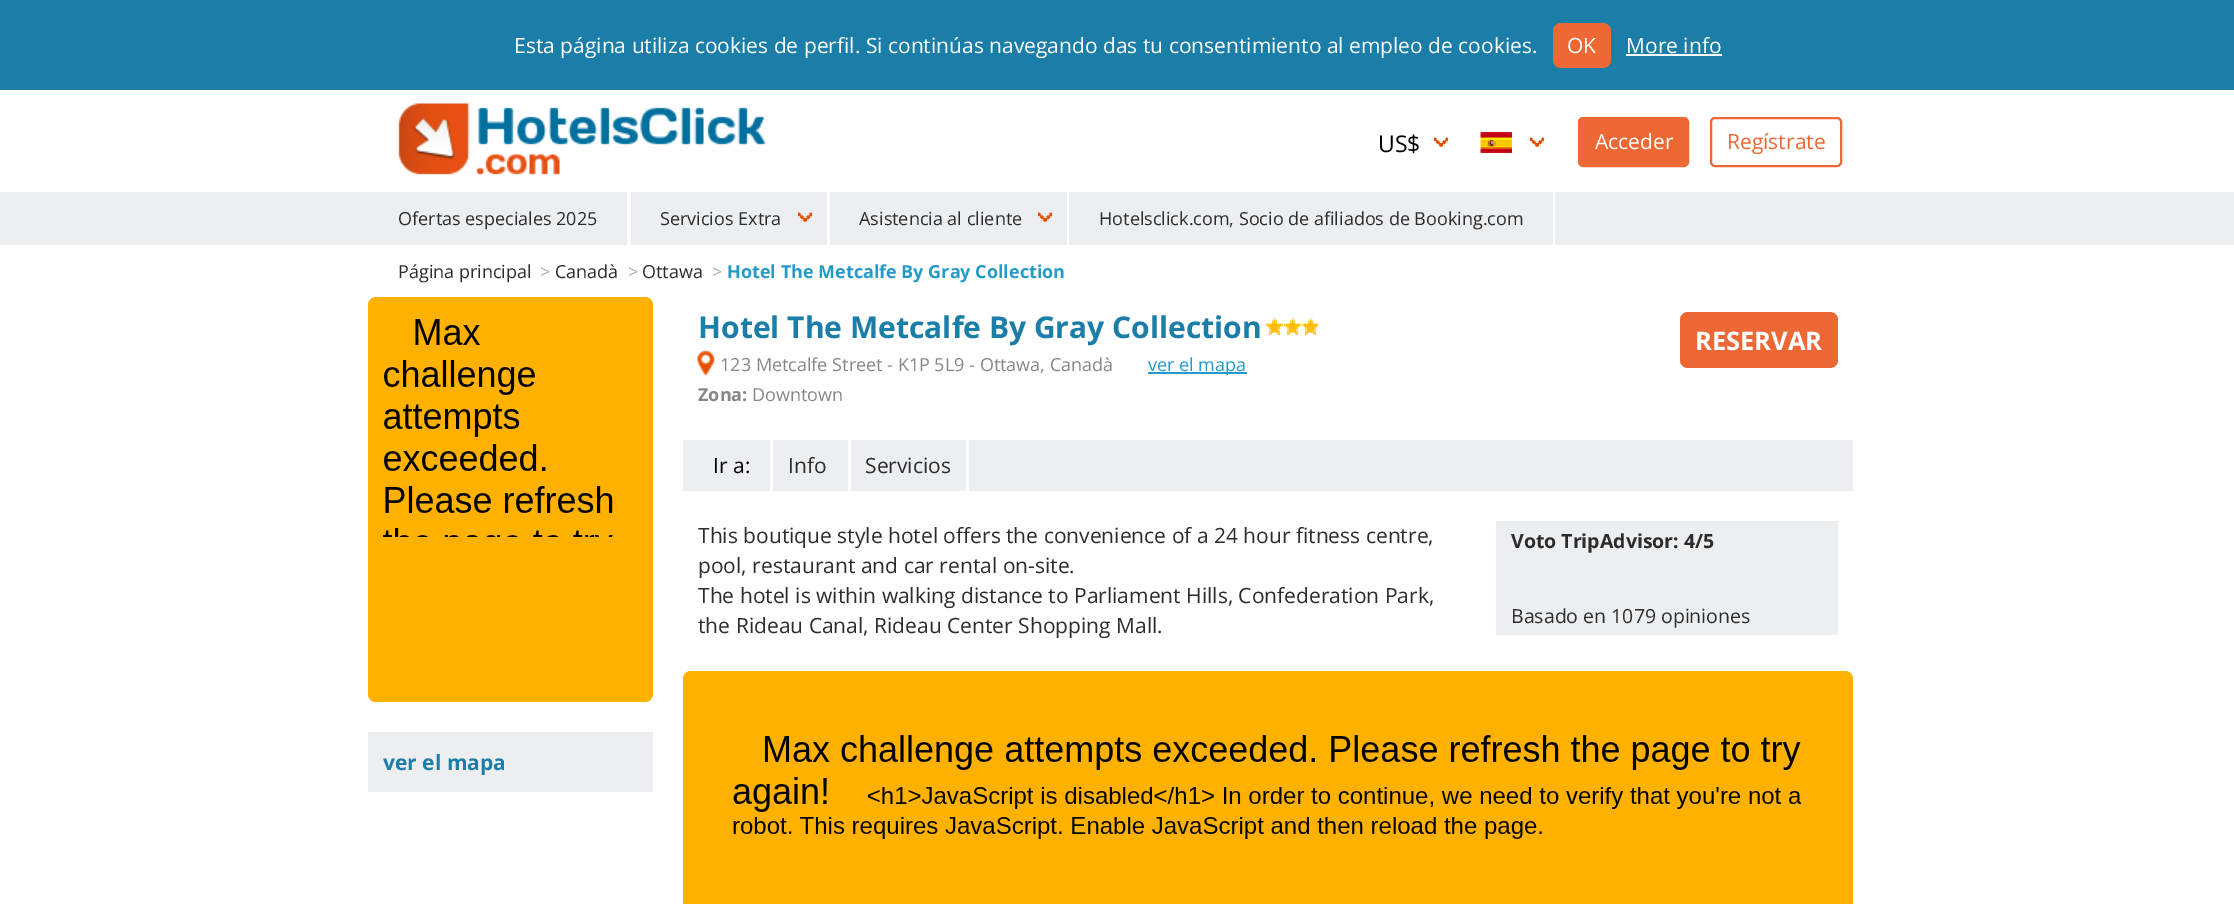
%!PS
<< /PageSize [2234 904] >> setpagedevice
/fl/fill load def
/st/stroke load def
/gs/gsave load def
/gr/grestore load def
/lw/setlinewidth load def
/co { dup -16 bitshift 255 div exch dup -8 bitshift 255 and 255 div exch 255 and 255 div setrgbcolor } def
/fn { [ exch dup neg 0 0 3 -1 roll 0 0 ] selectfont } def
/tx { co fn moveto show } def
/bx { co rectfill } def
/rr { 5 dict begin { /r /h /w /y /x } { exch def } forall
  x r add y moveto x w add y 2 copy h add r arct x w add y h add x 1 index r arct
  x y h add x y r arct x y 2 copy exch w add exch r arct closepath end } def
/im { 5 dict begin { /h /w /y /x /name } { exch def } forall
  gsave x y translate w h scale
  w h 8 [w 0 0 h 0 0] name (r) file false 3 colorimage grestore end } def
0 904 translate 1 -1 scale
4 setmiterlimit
0 0 2234 904 16#FFFFFF bx
0 0 2234 90 16#1B7EA8 bx
16#EE6835 co
1553 23 58 45 8 rr fl
1626 54 96 2 16#FFFFFF bx
(media/1.raw) 398 103 368 72 im
(media/2.raw) 1434 137 14 10 im
(media/2.raw) 1530 137 14 10 im
(media/3.raw) 1480 132 32 21 im
16#EE6835 co
1579 118 109 48 4 rr gs fl gr
2 lw
st
1711 118 130 48 4 rr st
0 192 2234 53 16#EDEEF0 bx
627 192 4 53 16#FFFFFF bx
(media/4.raw) 798 212 14 10 im
827 192 3 53 16#FFFFFF bx
(media/4.raw) 1038 212 14 10 im
1067 192 2 53 16#FFFFFF bx
1553 192 2 53 16#FFFFFF bx
(media/5.raw) 1266 318 53 17 im
(media/6.raw) 697 350 18 26 im
1148 372 99 2 16#249AC9 bx
16#EE6835 co
1680 312 158 56 8 rr fl
683 440 1170 51 16#EDEEF0 bx
770 440 3 51 16#FFFFFF bx
966 440 3 51 16#FFFFFF bx
848 440 3 51 16#FFFFFF bx
1496 521 342 114 16#EDEEF0 bx
16#FFB100 co
683 671 1170 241 8 rr fl
(media/7.raw) 733 735 1069 104 im
368 297 285 405 8 rr fl
(media/8.raw) 383 319 230 218 im
368 732 285 60 16#EDEEF0 bx
(Esta página utiliza cookies de perfil. Si continúas navegando das tu consentimiento al empleo de cookies.) 514 53 /OpenSans-Regular 21 16#FFFFFF tx
(OK) 1567 53 /OpenSans-Regular 21 16#FFFFFF tx
(More info) 1626 53 /OpenSans-Regular 21 16#FFFFFF tx
(US$) 1378 152 /OpenSans-Regular 23 16#000000 tx
(Acceder) 1595 149 /OpenSans-Regular 21 16#FFFFFF tx
(Regístrate) 1727 149 /OpenSans-Regular 21 16#EE6835 tx
(Ofertas especiales 2025) 398 225 /OpenSans-Regular 18 16#2C2C2C tx
(Servicios Extra) 660 225 /OpenSans-Regular 18 16#2C2C2C tx
(Asistencia al cliente) 859 225 /OpenSans-Regular 18 16#2C2C2C tx
(Hotelsclick.com, Socio de afiliados de Booking.com) 1099 225 /OpenSans-Regular 18 16#2C2C2C tx
(Página principal) 398 278 /OpenSans-Regular 18 16#2C2C2C tx
(>) 540 278 /OpenSans-Regular 18 16#ACACAC tx
(Canadà) 555 278 /OpenSans-Regular 18 16#2C2C2C tx
(>) 628 278 /OpenSans-Regular 18 16#ACACAC tx
(Ottawa) 642 278 /OpenSans-Regular 18 16#2C2C2C tx
(>) 712 278 /OpenSans-Regular 18 16#ACACAC tx
(Hotel The Metcalfe By Gray Collection) 727 278 /OpenSans-Bold 18 16#249AC9 tx
(Hotel The Metcalfe By Gray Collection) 698 338 /OpenSans-Bold 30 16#1B7EA8 tx
(123 Metcalfe Street - K1P 5L9 - Ottawa, Canadà) 720 371 /OpenSans-Regular 18 16#878787 tx
(ver el mapa) 1148 371 /OpenSans-Regular 18 16#249AC9 tx
(Zona:) 698 401 /OpenSans-Bold 18 16#878787 tx
(Downtown) 752 401 /OpenSans-Regular 18 16#878787 tx
(RESERVAR) 1695 350 /OpenSans-Bold 25.5 16#FFFFFF tx
(Ir a:) 713 473 /OpenSans-Regular 21 16#000000 tx
(Info) 788 473 /OpenSans-Regular 21 16#2C2C2C tx
(Servicios) 865 473 /OpenSans-Regular 21 16#2C2C2C tx
(This boutique style hotel offers the convenience of a 24 hour fitness centre,) 698 543 /OpenSans-Regular 21 16#2C2C2C tx
(pool, restaurant and car rental on-site.) 698 573 /OpenSans-Regular 21 16#2C2C2C tx
(The hotel is within walking distance to Parliament Hills, Confederation Park,) 698 603 /OpenSans-Regular 21 16#2C2C2C tx
(the Rideau Canal, Rideau Center Shopping Mall.) 698 633 /OpenSans-Regular 21 16#2C2C2C tx
(Voto TripAdvisor: 4/5) 1511 548 /OpenSans-Bold 19.5 16#2C2C2C tx
(Basado en 1079 opiniones) 1511 623 /OpenSans-Regular 19.5 16#2C2C2C tx
(ver el mapa) 383 770 /OpenSans-Bold 21 16#1B7EA8 tx
showpage
